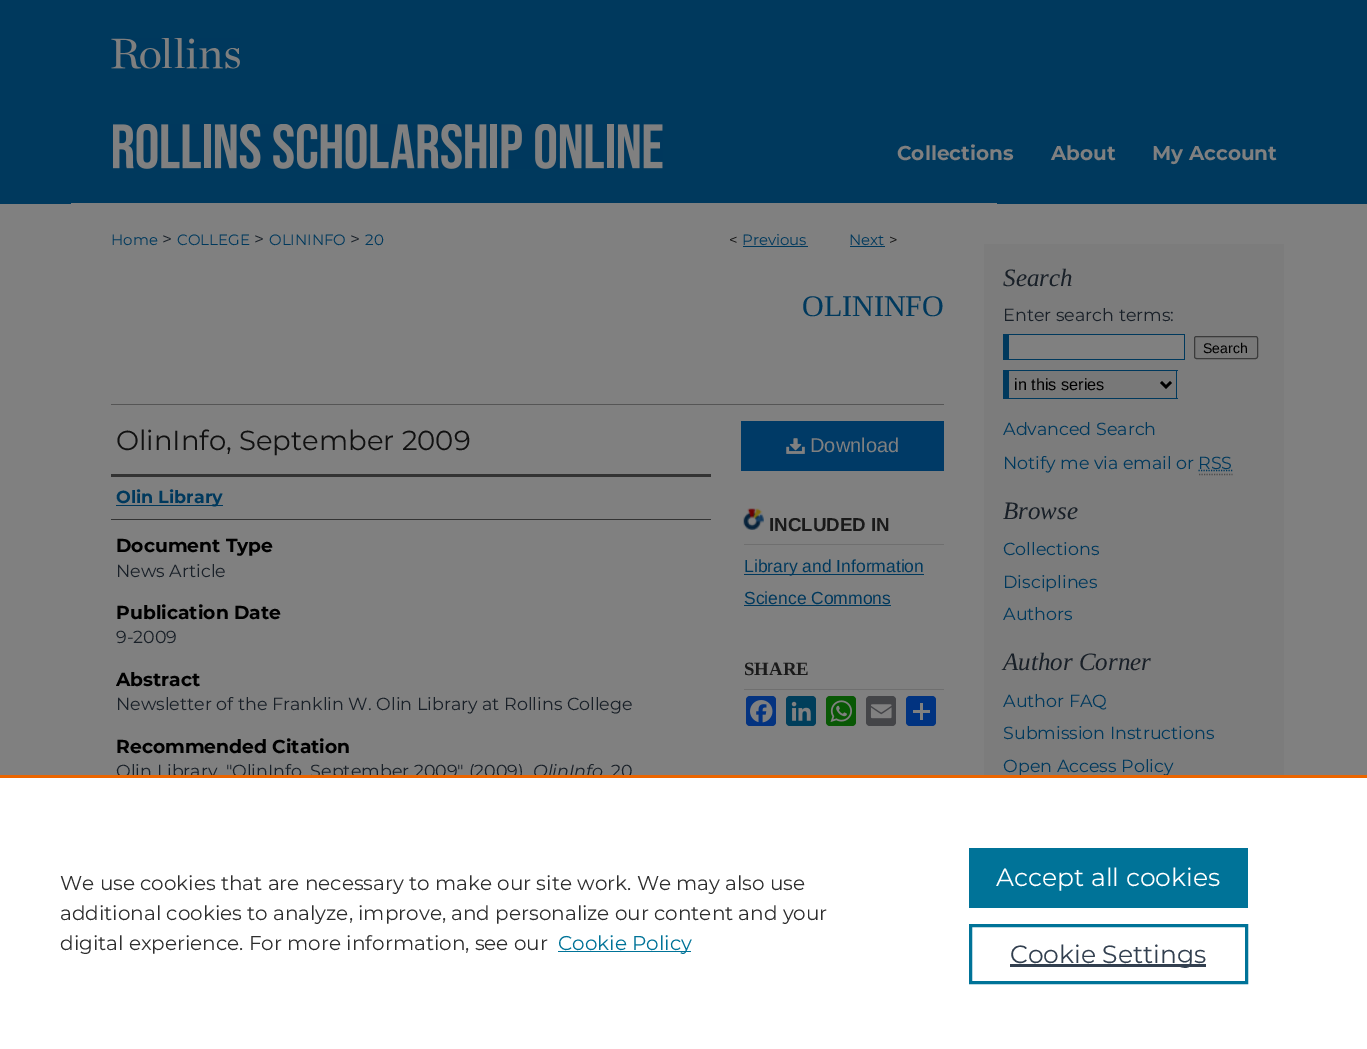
%!PS
<< /PageSize [1367 1049] >> setpagedevice
/mt/moveto load def
/li/lineto load def
/fl/fill load def
/st/stroke load def
/gs/gsave load def
/gr/grestore load def
/lw/setlinewidth load def
/co { dup -16 bitshift 255 div exch dup -8 bitshift 255 and 255 div exch 255 and 255 div setrgbcolor } def
/fn { [ exch dup neg 0 0 3 -1 roll 0 0 ] selectfont } def
/tx { co fn moveto show } def
/bx { co rectfill } def
/rr { 5 dict begin { /r /h /w /y /x } { exch def } forall
  x r add y moveto x w add y 2 copy h add r arct x w add y h add x 1 index r arct
  x y h add x y r arct x y 2 copy exch w add exch r arct closepath end } def
/im { 5 dict begin { /h /w /y /x /name } { exch def } forall
  gsave x y translate w h scale
  w h 8 [w 0 0 h 0 0] name (r) file false 3 colorimage grestore end } def
0 1049 translate 1 -1 scale
4 setmiterlimit
0 0 1367 1049 16#808080 bx
0 0 1367 204 16#00395D bx
(media/1.raw) 111 38 129 31 im
(media/2.raw) 113 124 550 45 im
71 203 926 1 16#808080 bx
743 246 65 1 16#00395D bx
850 246 35 1 16#00395D bx
111 404 833 1 16#555555 bx
111 474 600 3 16#333333 bx
111 519 600 1 16#333333 bx
116 505 107 1 16#00395D bx
741 421 203 50 16#003A66 bx
(media/3.raw) 786 438 19 16 im
(media/4.raw) 743 508 21 22 im
744 544 200 1 16#6F6F6F bx
744 574 180 1 16#00395D bx
744 605 147 1 16#00395D bx
744 689 200 1 16#6F6F6F bx
16#043380 co
746 696 30 30 4 rr fl
(media/5.raw) 750 700 23 23 im
16#003E5B co
786 696 30 30 4 rr fl
(media/6.raw) 791 701 20 20 im
16#095805 co
826 696 30 30 4 rr fl
(media/7.raw) 830 700 22 22 im
16#444548 co
866 696 30 30 4 rr fl
(media/8.raw) 870 704 22 15 im
16#013380 co
906 696 30 30 4 rr fl
920 703 3 17 16#808080 bx
913 710 17 3 16#808080 bx
984 244 300 531 16#7C7C7C bx
1009 335 175 24 16#808080 bx
1003 334 182 1 16#00395D bx
1184 334 1 26 16#00395D bx
1003 359 182 1 16#00395D bx
1003 334 6 26 16#00395D bx
16#787878 co
1194.5 336.5 63 22 2 rr gs fl gr
16#3B3B3B co
st
1009 371 167 27 16#787878 bx
1003 370 175 1 16#00395D bx
1176 370 1 29 16#00395D bx
1003 398 175 1 16#00395D bx
1003 370 6 29 16#00395D bx
16#000000 co
2.5 lw
1161 382 mt 1166 387 li 1171 382 li st
16#4D4D4D co
1.2 lw
[1.25 1.25] 0 setdash
1199 474.5 mt 1232.5 474.5 li st
16#00395D co
1198.5 470.5 mt 1232.5 470.5 li st
(Collections) 897 160 /Montserrat-Bold 20 16#808080 tx
(About) 1051 160 /Montserrat-Bold 20 16#808080 tx
(My Account) 1152 160 /Montserrat-Bold 20 16#808080 tx
(Home) 111 245 /Montserrat-Regular 15 16#00395D tx
(>) 162 245 /Montserrat-Regular 17.5 16#192028 tx
(COLLEGE) 177 245 /Montserrat-Regular 15 16#00395D tx
(>) 254 245 /Montserrat-Regular 17.5 16#192028 tx
(OLININFO) 269 245 /Montserrat-Regular 15 16#00395D tx
(>) 350 245 /Montserrat-Regular 17.5 16#192028 tx
(20) 365 245 /Montserrat-Regular 15 16#00395D tx
(<) 729 245 /Montserrat-Regular 15 16#111111 tx
(Previous) 742 245 /Montserrat-Regular 15 16#00395D tx
(Next) 849 245 /Montserrat-Regular 15 16#00395D tx
(>) 889 245 /Montserrat-Regular 15 16#111111 tx
(OLININFO) 802 316 /LiberationSerif-Regular 30 16#00395D tx
(OlinInfo, September 2009) 116 450 /Montserrat-Regular 27.5 16#111111 tx
(Olin Library) 116 503 /Montserrat-Bold 17.5 16#00395D tx
(Document Type) 116 552 /Montserrat-Bold 18.75 16#000000 tx
(News Article) 116 577 /Montserrat-Regular 17.5 16#192028 tx
(Publication Date) 116 619 /Montserrat-Bold 18.75 16#000000 tx
(9-2009) 116 643 /Montserrat-Regular 17.5 16#192028 tx
(Abstract) 116 686 /Montserrat-Bold 18.75 16#000000 tx
(Newsletter of the Franklin W. Olin Library at Rollins College) 116 710 /Montserrat-Regular 17.5 16#192028 tx
(Recommended Citation) 116 753 /Montserrat-Bold 18.75 16#000000 tx
(Olin Library, "OlinInfo, September 2009" \(2009\)) 116 777 /Montserrat-Regular 17.5 16#192028 tx
(OlinInfo) 533 777 /Montserrat-Italic 17.5 16#192028 tx
(20) 611 777 /Montserrat-Regular 17.5 16#192028 tx
(Download) 810 452 /LiberationSans-Regular 20 16#808080 tx
(INCLUDED IN) 769 531 /LiberationSans-Bold 18.75 16#1A1A1A tx
(Library and Information) 744 572 /LiberationSans-Regular 17.5 16#00395D tx
(Science Commons) 744 604 /LiberationSans-Regular 17.5 16#00395D tx
(SHARE) 744 675 /LiberationSerif-Bold 18.75 16#1A1A1A tx
(Search) 1003 286 /LiberationSerif-Italic 25 16#192028 tx
(Enter search terms:) 1003 321 /Montserrat-Regular 17.5 16#192028 tx
(Search) 1203 353 /LiberationSans-Regular 14 16#000000 tx
(in this series) 1014 390 /LiberationSans-Regular 16.25 16#000000 tx
(Advanced Search) 1003 435 /Montserrat-Regular 17.5 16#00395D tx
(Notify me via email or) 1003 469 /Montserrat-Regular 17.5 16#00395D tx
(RSS) 1198 469 /Montserrat-Regular 17.5 16#00395D tx
(Browse) 1003 519 /LiberationSerif-Italic 25 16#192028 tx
(Collections) 1003 555 /Montserrat-Regular 17.5 16#00395D tx
(Disciplines) 1003 588 /Montserrat-Regular 17.5 16#00395D tx
(Authors) 1003 620 /Montserrat-Regular 17.5 16#00395D tx
(Author Corner) 1003 670 /LiberationSerif-Italic 25 16#192028 tx
(Author FAQ) 1003 707 /Montserrat-Regular 17.5 16#00395D tx
(Submission Instructions) 1003 739 /Montserrat-Regular 17.5 16#00395D tx
(Open Access Policy) 1003 772 /Montserrat-Regular 17.5 16#00395D tx
0 778 1367 271 16#FFFFFF bx
0 775 1367 3 16#EB6500 bx
(We use cookies that are necessary to make our site work. We may also use) 60 890 /Montserrat-Regular 20 16#2E2E2E tx
(additional cookies to analyze, improve, and personalize our content and your) 60 920 /Montserrat-Regular 20 16#2E2E2E tx
(digital experience. For more information, see our) 60 950 /Montserrat-Regular 20 16#2E2E2E tx
558 951 133 1 16#007398 bx
(Cookie Policy) 558 950 /Montserrat-Regular 20 16#007398 tx
969 848 279 60 16#007398 bx
(Accept all cookies) 996 886 /Montserrat-Regular 25 16#FFFFFF tx
16#007398 co
3 lw
[] 0 setdash
970.5 925.5 276 57 rectstroke
1010 964 196 3 16#323F4F bx
(Cookie Settings) 1010 963 /Montserrat-Regular 25 16#323F4F tx
showpage
